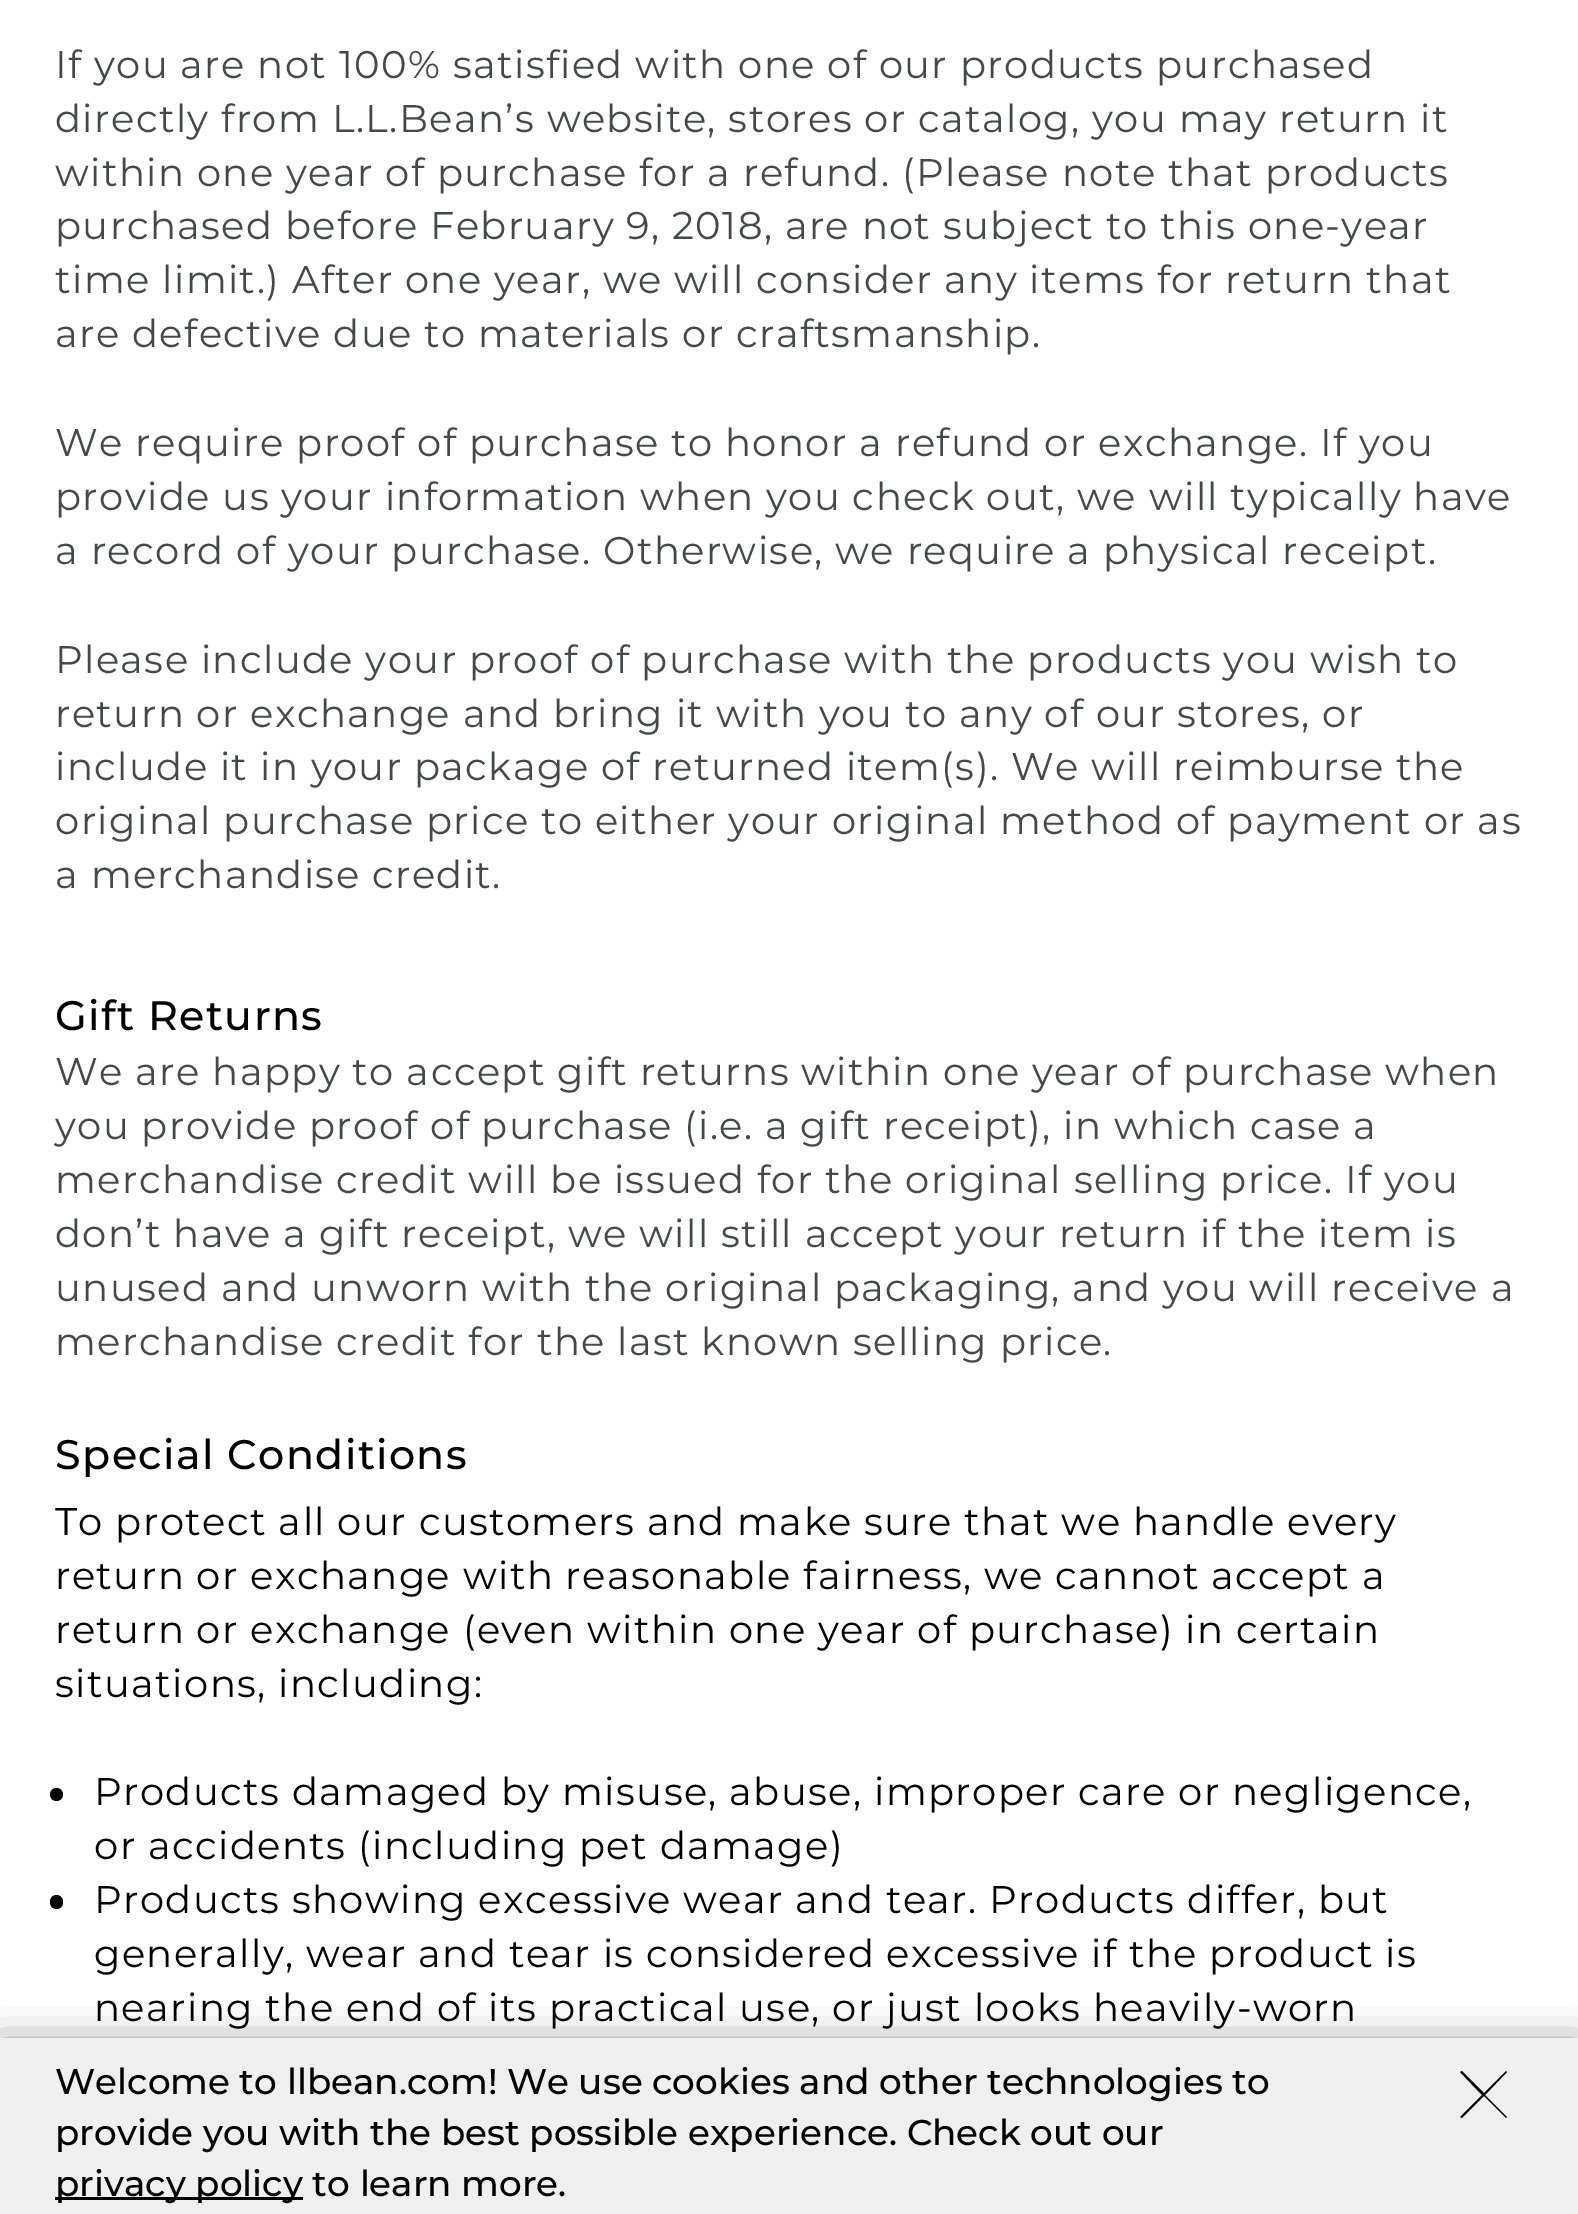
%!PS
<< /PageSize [1578 2214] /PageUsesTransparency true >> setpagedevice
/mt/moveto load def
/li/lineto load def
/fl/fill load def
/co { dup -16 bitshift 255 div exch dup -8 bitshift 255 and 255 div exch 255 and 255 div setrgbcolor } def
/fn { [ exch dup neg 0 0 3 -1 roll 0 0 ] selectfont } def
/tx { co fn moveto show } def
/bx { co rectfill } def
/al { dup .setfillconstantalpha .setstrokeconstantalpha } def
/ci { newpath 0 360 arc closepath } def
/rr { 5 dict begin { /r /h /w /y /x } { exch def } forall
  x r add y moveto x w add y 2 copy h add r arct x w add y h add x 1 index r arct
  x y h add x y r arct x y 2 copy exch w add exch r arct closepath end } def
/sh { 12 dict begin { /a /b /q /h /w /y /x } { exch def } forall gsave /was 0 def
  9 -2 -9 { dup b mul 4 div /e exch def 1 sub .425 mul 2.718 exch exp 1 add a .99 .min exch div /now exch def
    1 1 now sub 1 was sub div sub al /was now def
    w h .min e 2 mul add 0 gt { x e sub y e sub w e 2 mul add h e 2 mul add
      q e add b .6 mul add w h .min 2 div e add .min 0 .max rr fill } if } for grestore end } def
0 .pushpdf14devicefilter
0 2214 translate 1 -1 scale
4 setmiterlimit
0 0 1578 2214 16#FFFFFF bx
16#000000 co
56.5 1794.5 6.5 ci fl
50 1895 13 14 6.5 rr fl
0 2052 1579 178 0 20.5 .75 sh
0 2038 1578 176 16#EFEFEF bx
55 2197 248 3 16#000000 bx
1507 2072 mt 1506 2071 li 1484 2093 li 1462 2071 li 1460 2072 li 1482 2095 li 1460 2117 li 1462 2118 li 1484 2096 li 1506 2118 li 1507 2117 li 1485 2095 li 1507 2072 li fl
/Montserrat-Regular 38.5 fn
16#464749 co
55 78 mt 1.38 0 (If you are not 100% satisfied with one of our products purchased) ashow
55 132 mt 1.38 0 (directly from L.L.Bean’s website, stores or catalog, you may return it) ashow
55 186 mt 1.38 0 (within one year of purchase for a refund. \(Please note that products) ashow
55 239 mt 1.38 0 (purchased before February 9, 2018, are not subject to this one-year) ashow
55 293 mt 1.38 0 (time limit.\) After one year, we will consider any items for return that) ashow
55 347 mt 1.38 0 (are defective due to materials or craftsmanship.) ashow
55 456 mt 1.38 0 (We require proof of purchase to honor a refund or exchange. If you) ashow
55 510 mt 1.38 0 (provide us your information when you check out, we will typically have) ashow
55 564 mt 1.38 0 (a record of your purchase. Otherwise, we require a physical receipt.) ashow
55 673 mt 1.38 0 (Please include your proof of purchase with the products you wish to) ashow
55 727 mt 1.38 0 (return or exchange and bring it with you to any of our stores, or) ashow
55 780 mt 1.38 0 (include it in your package of returned item\(s\). We will reimburse the) ashow
55 834 mt 1.38 0 (original purchase price to either your original method of payment or as) ashow
55 888 mt 1.38 0 (a merchandise credit.) ashow
/Montserrat-Medium 41.25 fn
16#000000 co
55 1030 mt 1.38 0 (Gift Returns) ashow
/Montserrat-Regular 38.5 fn
16#464749 co
55 1085 mt 1.38 0 (We are happy to accept gift returns within one year of purchase when) ashow
55 1139 mt 1.38 0 (you provide proof of purchase \(i.e. a gift receipt\), in which case a) ashow
55 1193 mt 1.38 0 (merchandise credit will be issued for the original selling price. If you) ashow
55 1247 mt 1.38 0 (don’t have a gift receipt, we will still accept your return if the item is) ashow
55 1301 mt 1.38 0 (unused and unworn with the original packaging, and you will receive a) ashow
55 1355 mt 1.38 0 (merchandise credit for the last known selling price.) ashow
/Montserrat-Medium 41.25 fn
16#000000 co
55 1469 mt 1.38 0 (Special Conditions) ashow
/Montserrat-Regular 38.5 fn
55 1535 mt 1.38 0 (To protect all our customers and make sure that we handle every) ashow
55 1589 mt 1.38 0 (return or exchange with reasonable fairness, we cannot accept a) ashow
55 1643 mt 1.38 0 (return or exchange \(even within one year of purchase\) in certain) ashow
55 1697 mt 1.38 0 (situations, including:) ashow
94 1805 mt 1.38 0 (Products damaged by misuse, abuse, improper care or negligence,) ashow
94 1859 mt 1.38 0 (or accidents \(including pet damage\)) ashow
94 1913 mt 1.38 0 (Products showing excessive wear and tear. Products differ, but) ashow
94 1967 mt 1.38 0 (generally, wear and tear is considered excessive if the product is) ashow
94 2021 mt 1.38 0 (nearing the end of its practical use, or just looks heavily-worn) ashow
(Welcome to llbean.com! We use cookies and other technologies to) 55 2094 /Montserrat-Medium 35.75 16#000000 tx
(provide you with the best possible experience. Check out our) 55 2145 /Montserrat-Medium 35.75 16#000000 tx
(privacy policy to learn more.) 55 2196 /Montserrat-Medium 35.75 16#000000 tx
.poppdf14devicefilter showpage
